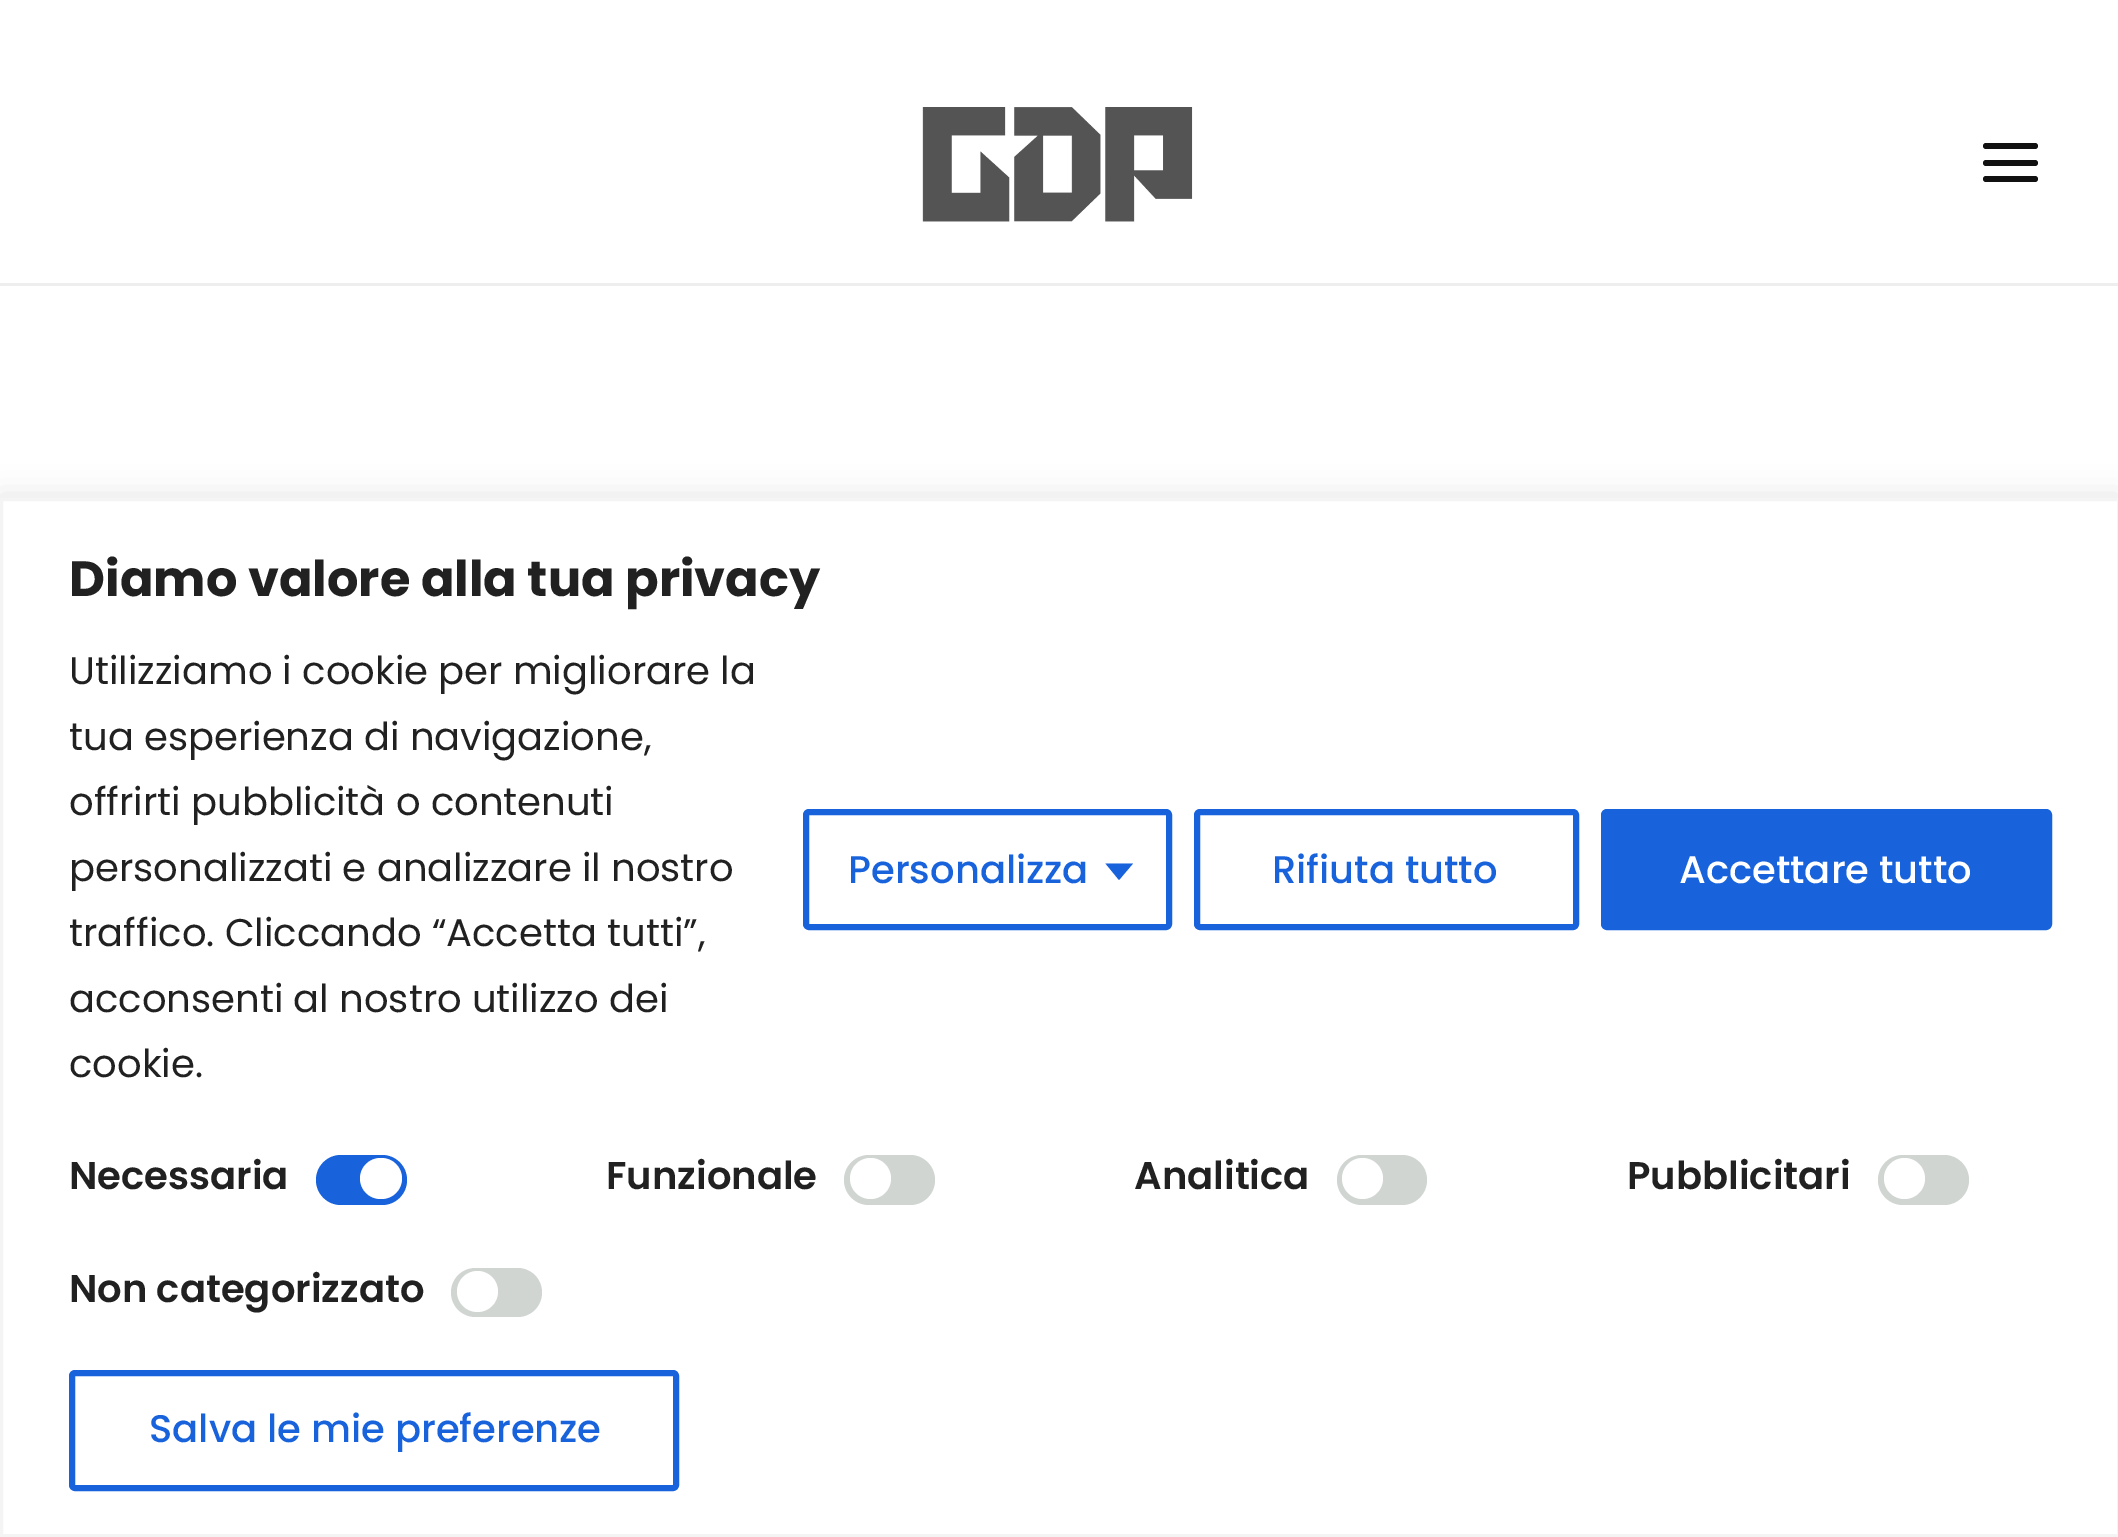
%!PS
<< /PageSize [2118 1537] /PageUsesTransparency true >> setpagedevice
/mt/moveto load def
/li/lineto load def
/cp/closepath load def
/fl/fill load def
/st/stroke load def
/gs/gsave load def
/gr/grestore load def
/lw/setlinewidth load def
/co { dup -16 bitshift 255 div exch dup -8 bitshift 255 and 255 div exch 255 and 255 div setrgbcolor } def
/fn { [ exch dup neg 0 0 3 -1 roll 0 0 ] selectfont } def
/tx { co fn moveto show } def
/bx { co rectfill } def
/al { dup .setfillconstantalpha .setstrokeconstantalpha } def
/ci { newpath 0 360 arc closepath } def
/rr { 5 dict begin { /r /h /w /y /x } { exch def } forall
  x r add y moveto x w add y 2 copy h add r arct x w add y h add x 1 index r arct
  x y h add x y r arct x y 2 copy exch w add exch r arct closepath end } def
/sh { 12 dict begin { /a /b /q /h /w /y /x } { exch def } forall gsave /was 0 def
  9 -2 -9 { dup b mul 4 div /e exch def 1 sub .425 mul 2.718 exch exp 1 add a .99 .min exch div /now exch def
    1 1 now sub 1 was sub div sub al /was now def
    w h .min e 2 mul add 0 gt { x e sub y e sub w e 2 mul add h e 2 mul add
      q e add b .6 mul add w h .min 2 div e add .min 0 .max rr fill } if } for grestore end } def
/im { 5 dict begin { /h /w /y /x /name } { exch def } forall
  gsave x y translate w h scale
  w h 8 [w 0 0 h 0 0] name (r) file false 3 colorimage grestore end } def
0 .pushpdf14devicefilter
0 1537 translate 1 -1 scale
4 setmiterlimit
0 0 2118 1537 16#FFFFFF bx
0 283 2118 3 16#EEEEEE bx
(media/1.raw) 922 107 271 115 im
16#111111 co
1983 160 55 6 3 rr fl
1983 143 55 6 3 rr fl
1983 176 55 6 3 rr fl
16#ACABAB co
0 495 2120 1040 0 14 .3 sh
16#FFFFFF co
1.5 499.5 mt 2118.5 499.5 li 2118.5 1535.5 li 1.5 1535.5 li cp gs fl gr
16#F4F4F4 co
3 lw
st
16#1863DC co
6 lw
806 812 363 115 3 rr st
1105.5 863.5 mt 1133 863.5 li 1119 880 li cp fl
1197 812 379 115 3 rr st
1604 812 445 115 3 rr gs fl gr
st
316 1155 91 50 25 rr fl
16#FFFFFF co
360 1158 42 41 20.5 rr fl
16#D0D5D2 co
844 1155 91 50 25 rr fl
16#FFFFFF co
870.5 1178.5 20.5 ci fl
16#D0D5D2 co
1337 1155 90 50 25 rr fl
16#FFFFFF co
1362.5 1178.5 20.5 ci fl
16#D0D5D2 co
1878 1155 91 50 25 rr fl
16#FFFFFF co
1904.5 1178.5 20.5 ci fl
16#D0D5D2 co
451 1268 91 49 24.5 rr fl
16#FFFFFF co
477.5 1291.5 20.5 ci fl
16#1863DC co
72 1373 604 115 3 rr st
(Diamo valore alla tua privacy) 69 596 /Poppins-Bold 49.5 16#212121 tx
(Utilizziamo i cookie per migliorare la) 69 684 /Poppins-Regular 38.5 16#212121 tx
(tua esperienza di navigazione,) 69 750 /Poppins-Regular 38.5 16#212121 tx
(offrirti pubblicità o contenuti) 69 815 /Poppins-Regular 38.5 16#212121 tx
(personalizzati e analizzare il nostro) 69 881 /Poppins-Regular 38.5 16#212121 tx
(traffico. Cliccando “Accetta tutti”,) 69 946 /Poppins-Regular 38.5 16#212121 tx
(acconsenti al nostro utilizzo dei) 69 1012 /Poppins-Regular 38.5 16#212121 tx
(cookie.) 69 1077 /Poppins-Regular 38.5 16#212121 tx
(Personalizza) 848 883 /Poppins-Medium 38.5 16#1863DC tx
(Rifiuta tutto) 1272 883 /Poppins-Medium 38.5 16#1863DC tx
(Accettare tutto) 1679 883 /Poppins-Medium 38.5 16#FFFFFF tx
(Necessaria) 69 1189 /Poppins-SemiBold 38.5 16#212121 tx
(Funzionale) 606 1189 /Poppins-SemiBold 38.5 16#212121 tx
(Analitica) 1134 1189 /Poppins-SemiBold 38.5 16#212121 tx
(Pubblicitari) 1627 1189 /Poppins-SemiBold 38.5 16#212121 tx
(Non categorizzato) 69 1302 /Poppins-SemiBold 38.5 16#212121 tx
(Salva le mie preferenze) 149 1442 /Poppins-Medium 38.5 16#1863DC tx
.poppdf14devicefilter showpage
